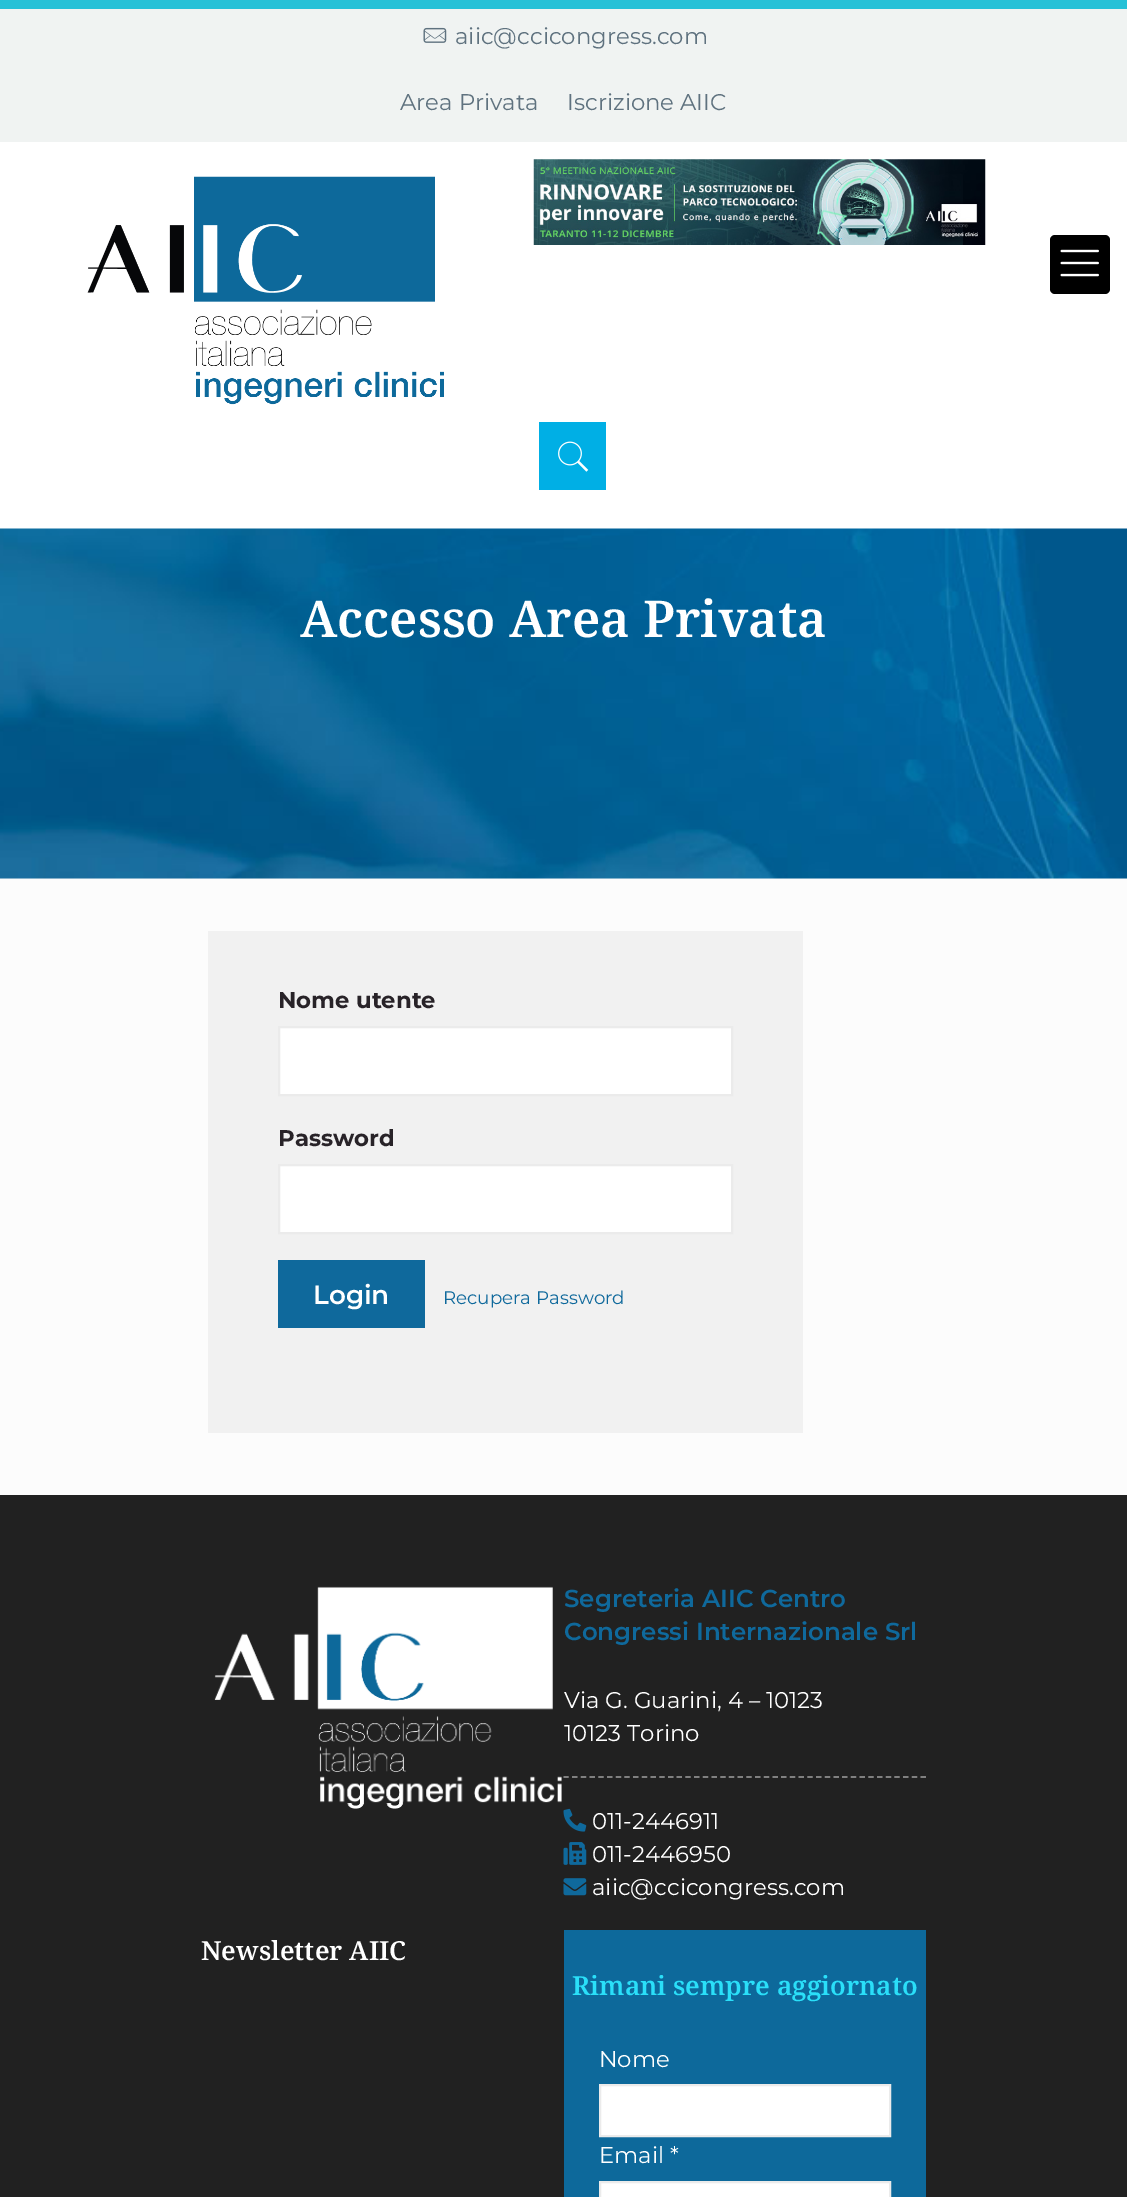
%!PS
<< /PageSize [1127 2197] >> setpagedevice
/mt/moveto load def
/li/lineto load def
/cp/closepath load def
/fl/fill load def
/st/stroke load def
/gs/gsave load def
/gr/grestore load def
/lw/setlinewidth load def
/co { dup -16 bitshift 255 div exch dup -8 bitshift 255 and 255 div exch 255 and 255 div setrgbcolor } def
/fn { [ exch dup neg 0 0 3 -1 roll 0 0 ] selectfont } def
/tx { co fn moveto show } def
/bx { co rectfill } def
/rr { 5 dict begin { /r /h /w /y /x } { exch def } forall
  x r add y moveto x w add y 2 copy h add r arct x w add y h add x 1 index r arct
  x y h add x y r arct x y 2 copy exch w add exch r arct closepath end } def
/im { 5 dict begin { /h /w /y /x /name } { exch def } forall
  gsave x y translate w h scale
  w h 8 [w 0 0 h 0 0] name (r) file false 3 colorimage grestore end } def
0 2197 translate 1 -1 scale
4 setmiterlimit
0 0 1127 2197 16#FCFCFC bx
0 142 1127 387 16#FFFFFF bx
0 9 1127 133 16#F0F3F2 bx
0 0 1127 9 16#26C1D7 bx
(media/1.raw) 423 27 24 16 im
(media/2.raw) 87 176 357 229 im
(media/3.raw) 533 159 453 86 im
16#000000 co
1050 235 60 59 5 rr fl
(media/4.raw) 1060 249 39 28 im
539 422 67 68 16#00AFE5 bx
(media/5.raw) 558 441 31 31 im
0 878 1127 1 16#F7F7F7 bx
(media/6.raw) 0 528 1127 351 im
208 931 595 502 16#F1F1F1 bx
16#FFFFFF co
279 1027 mt 732 1027 li 732 1095 li 279 1095 li cp gs fl gr
16#EBEBEB co
2 lw
st
16#FFFFFF co
279 1165 mt 732 1165 li 732 1233 li 279 1233 li cp gs fl gr
16#EBEBEB co
st
278 1260 147 68 16#0F699C bx
0 1495 1127 702 16#212121 bx
(media/7.raw) 214 1586 348 223 im
16#808080 co
1.8 lw
[5.25 3.46] 0 setdash
563.5 1777 mt 926 1777 li st
(media/8.raw) 563 1808 24 24 im
(media/9.raw) 563 1842 24 23 im
(media/10.raw) 563 1878 24 18 im
564 1930 362 267 16#0D699B bx
16#FFFFFF co
600 2085 mt 890 2085 li 890 2136 li 600 2136 li cp gs fl gr
16#EBEBEB co
2 lw
[] 0 setdash
st
16#FFFFFF co
600 2182 mt 890 2182 li 890 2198 li 600 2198 li cp gs fl gr
16#EBEBEB co
st
(aiic@ccicongress.com) 455 44 /Montserrat-Regular 22.75 16#5F727F tx
(Area Privata) 400 110 /Montserrat-Regular 22.75 16#5F727F tx
(Iscrizione AIIC) 567 110 /Montserrat-Regular 22.75 16#5F727F tx
(Accesso Area Privata) 300 637 /NotoSerif-SemiBold 50.75 16#FFFFFF tx
(Nome utente) 278 1008 /Montserrat-Bold 22.75 16#282328 tx
(Password) 278 1146 /Montserrat-Bold 22.75 16#282328 tx
(Login) 313 1304 /Montserrat-SemiBold 26.25 16#FFFFFF tx
(Recupera Password) 443 1304 /Montserrat-Regular 18.25 16#0F699C tx
(Segreteria AIIC Centro) 564 1607 /Montserrat-SemiBold 24.5 16#0F699C tx
(Congressi Internazionale Srl) 564 1640 /Montserrat-SemiBold 24.5 16#0F699C tx
(Via G. Guarini, 4 – 10123) 564 1708 /Montserrat-Regular 22.75 16#FFFFFF tx
(10123 Torino) 564 1741 /Montserrat-Regular 22.75 16#FFFFFF tx
(011-2446911) 592 1829 /Montserrat-Regular 22.75 16#FFFFFF tx
(011-2446950) 592 1862 /Montserrat-Regular 22.75 16#FFFFFF tx
(aiic@ccicongress.com) 592 1895 /Montserrat-Regular 22.75 16#FFFFFF tx
(Newsletter AIIC) 201 1960 /NotoSerif-SemiBold 26.25 16#FFFFFF tx
(Rimani sempre aggiornato) 572 1995 /NotoSerif-SemiBold 26.25 16#2ADFF9 tx
(Nome) 599 2067 /Montserrat-Regular 22.75 16#FFFFFF tx
(Email *) 599 2163 /Montserrat-Regular 22.75 16#FFFFFF tx
showpage
